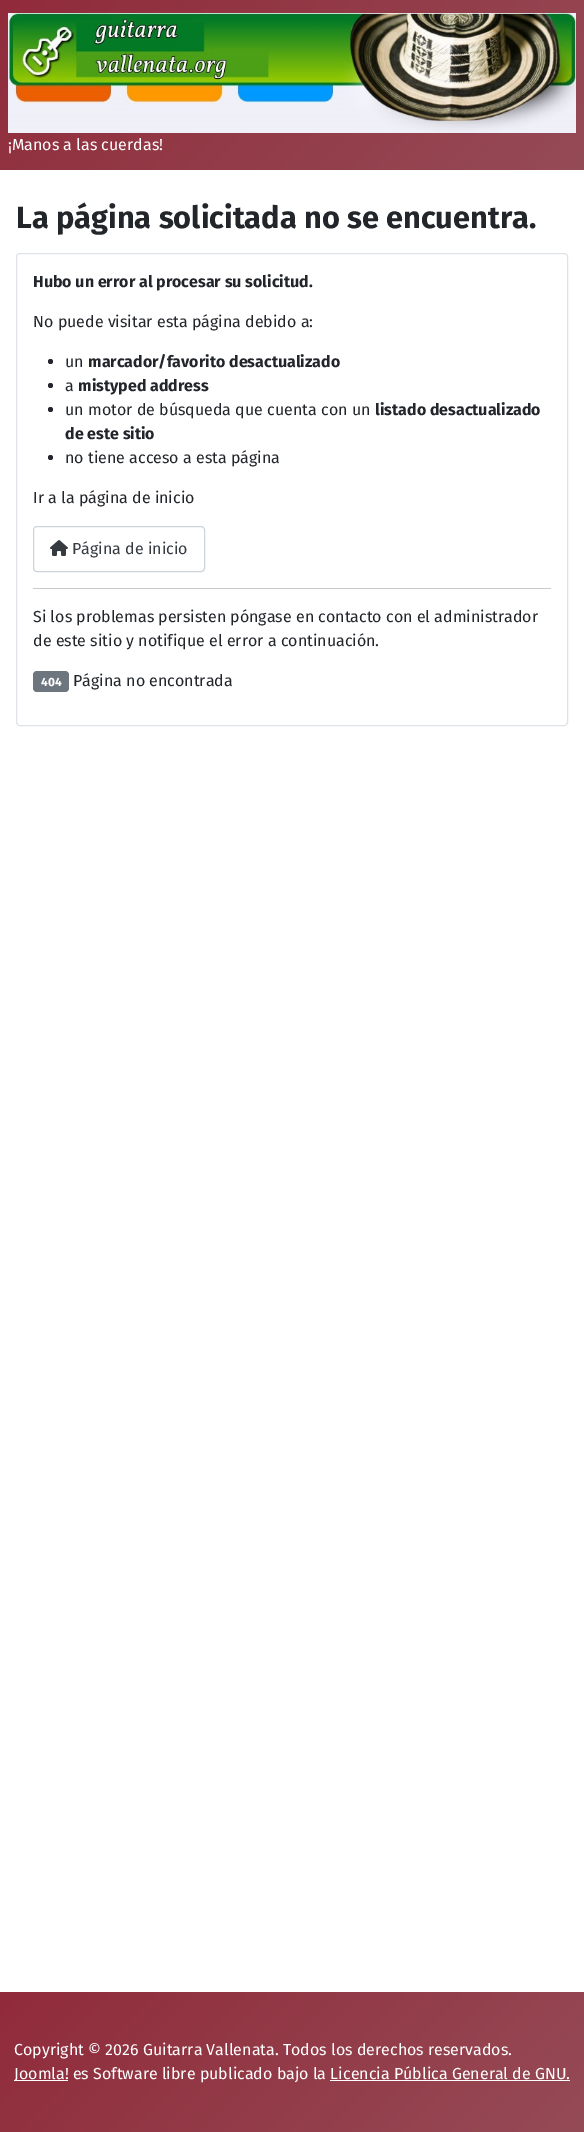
%!PS
<< /PageSize [584 2132] >> setpagedevice
/mt/moveto load def
/li/lineto load def
/cp/closepath load def
/fl/fill load def
/st/stroke load def
/gs/gsave load def
/gr/grestore load def
/co { dup -16 bitshift 255 div exch dup -8 bitshift 255 and 255 div exch 255 and 255 div setrgbcolor } def
/fn { [ exch dup neg 0 0 3 -1 roll 0 0 ] selectfont } def
/tx { co fn moveto show } def
/bx { co rectfill } def
/ci { newpath 0 360 arc closepath } def
/rr { 5 dict begin { /r /h /w /y /x } { exch def } forall
  x r add y moveto x w add y 2 copy h add r arct x w add y h add x 1 index r arct
  x y h add x y r arct x y 2 copy exch w add exch r arct closepath end } def
/im { 5 dict begin { /h /w /y /x /name } { exch def } forall
  gsave x y translate w h scale
  w h 8 [w 0 0 h 0 0] name (r) file false 3 colorimage grestore end } def
0 2132 translate 1 -1 scale
4 setmiterlimit
0 0 584 2132 16#FFFFFF bx
gs 0 0 mt 584 0 li 584 170 li 0 170 li cp clip newpath
<< /ShadingType 2 /ColorSpace /DeviceRGB /Coords [104 -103 481 274] /Extend [true true] /Function << /FunctionType 2 /Domain [0 1] /C0 [.569 .169 .231] /C1 [.584 .294 .337] /N 1 >> >> shfill gr
(media/1.raw) 8 13 568 120 im
16#DFE3E7 co
16.5 253.5 551 472 3.5 rr st
16#22262A co
50.5 361.5 2.5 ci fl
50.5 385.5 2.5 ci fl
50.5 409.5 2.5 ci fl
50.5 457.5 2.5 ci fl
16#CED4DA co
33.5 526.5 171 45 3.5 rr st
(media/2.raw) 50 540 18 16 im
33 588 518 1 16#C8C9CA bx
16#6D757E co
33 671 36 21 4 rr fl
gs 0 1992 mt 584 1992 li 584 2132 li 0 2132 li cp clip newpath
<< /ShadingType 2 /ColorSpace /DeviceRGB /Coords [111 1881 473 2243] /Extend [true true] /Function << /FunctionType 2 /Domain [0 1] /C0 [.569 .169 .231] /C1 [.584 .294 .337] /N 1 >> >> shfill gr
14 2080 54 1 16#FFFFFF bx
330 2080 240 1 16#FFFFFF bx
(¡Manos a las cuerdas!) 8 150 /FiraSans-Regular 16 16#FFFFFF tx
(La página solicitada no se encuentra.) 16 228 /FiraSans-Bold 30.75 16#22262A tx
(Hubo un error al procesar su solicitud.) 33 287 /FiraSans-Bold 16 16#22262A tx
(No puede visitar esta página debido a:) 33 327 /FiraSans-Regular 16 16#22262A tx
(un) 65 367 /FiraSans-Regular 16 16#22262A tx
(marcador/favorito desactualizado) 88 367 /FiraSans-Bold 16 16#22262A tx
(a) 65 391 /FiraSans-Regular 16 16#22262A tx
(mistyped address) 78 391 /FiraSans-Bold 16 16#22262A tx
(un motor de búsqueda que cuenta con un) 65 415 /FiraSans-Regular 16 16#22262A tx
(listado desactualizado) 375 415 /FiraSans-Bold 16 16#22262A tx
(de este sitio) 65 439 /FiraSans-Bold 16 16#22262A tx
(no tiene acceso a esta página) 65 463 /FiraSans-Regular 16 16#22262A tx
(Ir a la página de inicio) 33 503 /FiraSans-Regular 16 16#22262A tx
(Página de inicio) 72 554 /FiraSans-Regular 16 16#353B41 tx
(Si los problemas persisten póngase en contacto con el administrador) 33 622 /FiraSans-Regular 16 16#22262A tx
(de este sitio y notifique el error a continuación.) 33 646 /FiraSans-Regular 16 16#22262A tx
(404) 41 686 /FiraSans-Bold 12 16#FFFFFF tx
(Página no encontrada) 73 686 /FiraSans-Regular 16 16#22262A tx
(Copyright © 2026 Guitarra Vallenata. Todos los derechos reservados.) 14 2055 /FiraSans-Regular 16 16#FFFFFF tx
(Joomla! es Software libre publicado bajo la Licencia Pública General de GNU.) 14 2079 /FiraSans-Regular 16 16#FFFFFF tx
showpage
